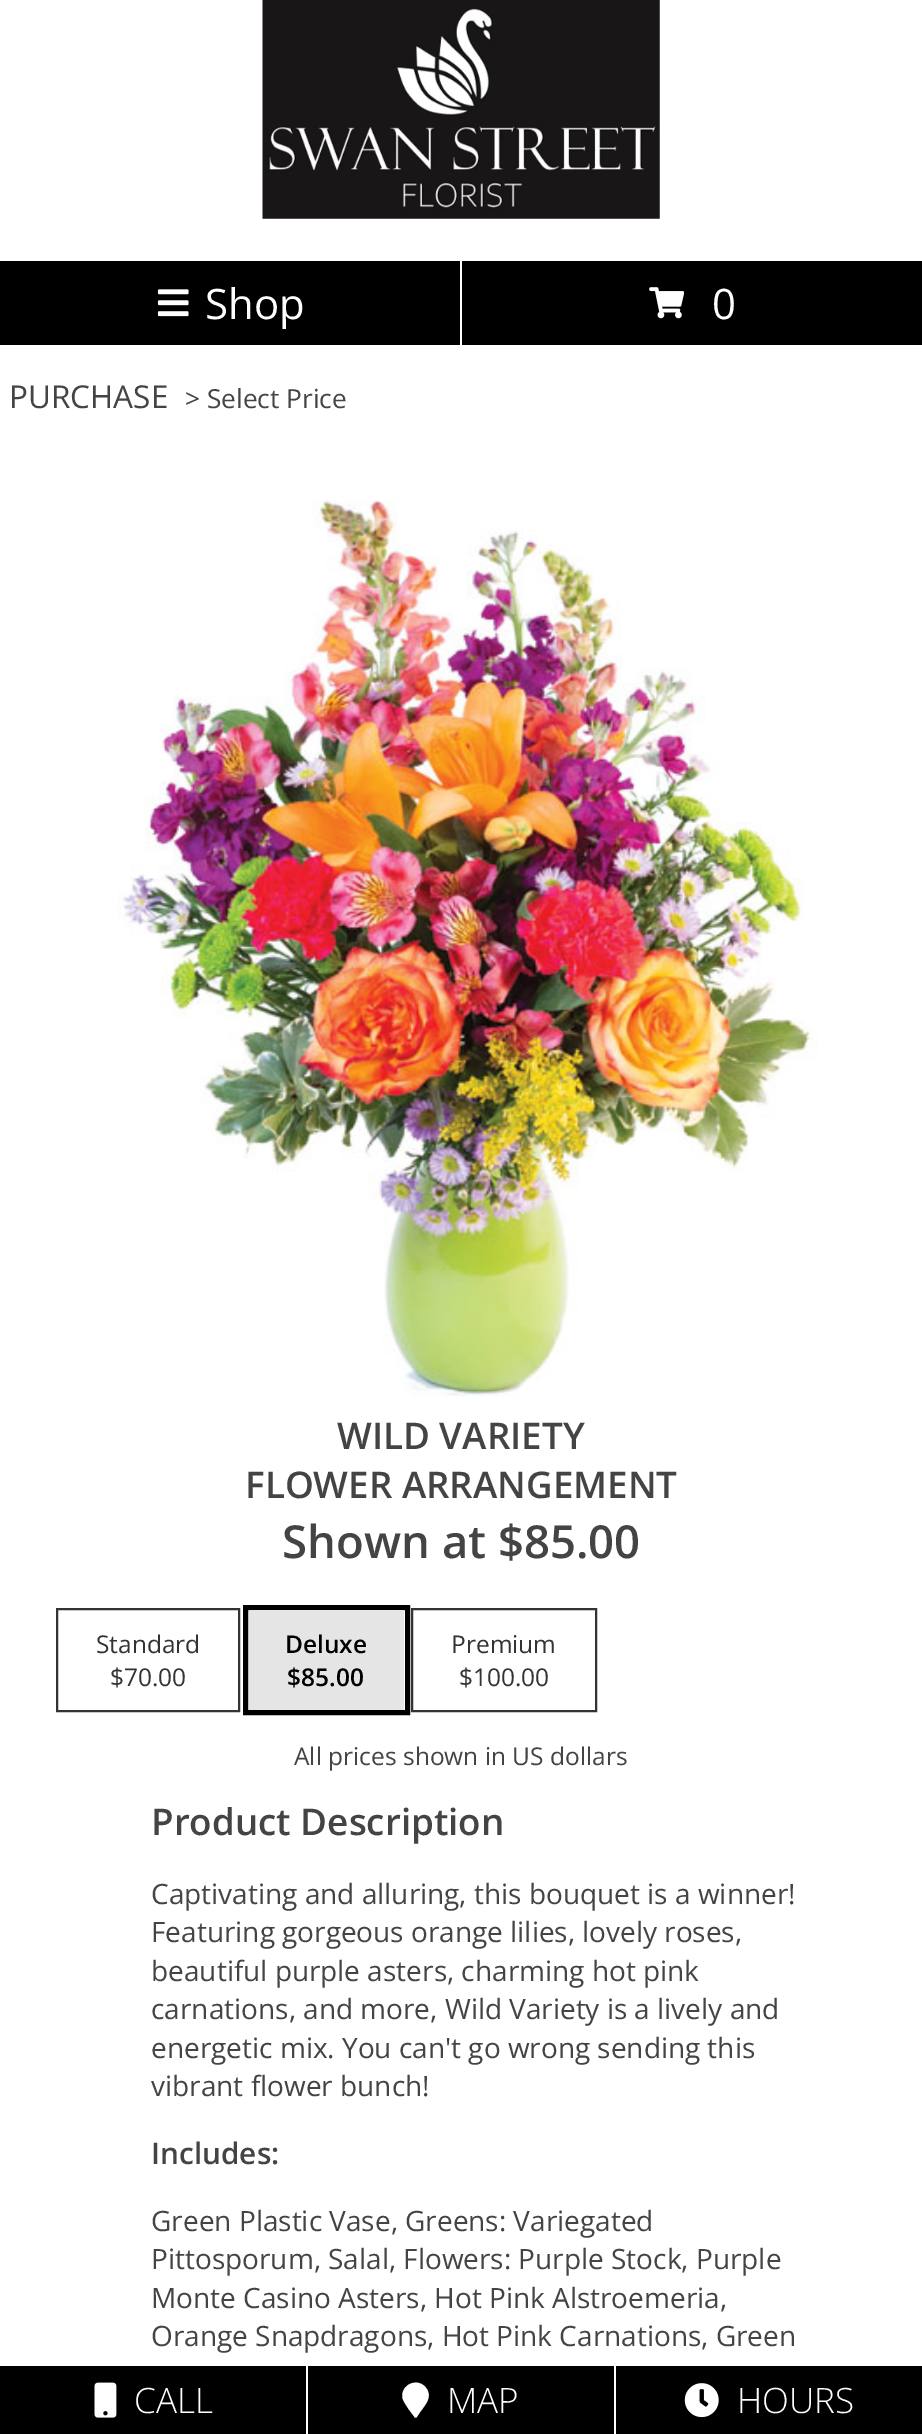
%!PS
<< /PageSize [922 2434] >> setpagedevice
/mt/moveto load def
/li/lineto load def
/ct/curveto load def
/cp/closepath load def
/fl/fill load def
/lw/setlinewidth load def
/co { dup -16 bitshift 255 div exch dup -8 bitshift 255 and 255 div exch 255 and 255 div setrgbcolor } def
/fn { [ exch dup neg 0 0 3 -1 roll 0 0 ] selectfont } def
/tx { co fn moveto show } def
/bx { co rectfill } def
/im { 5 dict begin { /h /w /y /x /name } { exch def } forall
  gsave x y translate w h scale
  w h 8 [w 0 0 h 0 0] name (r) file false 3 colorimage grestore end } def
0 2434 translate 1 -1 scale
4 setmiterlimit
0 0 922 2434 16#FFFFFF bx
(media/1.raw) 262 0 398 219 im
0 261 460 84 16#000000 bx
(media/2.raw) 157 289 32 28 im
462 261 460 84 16#000000 bx
(media/3.raw) 649 287 35 32 im
(media/4.raw) 117 500 701 897 im
16#333333 co
2 lw
57 1609 182 102 rectstroke
16#000000 co
5 lw
245.5 1607.5 162 105 rectstroke
249 1610 155 100 16#E5E5E5 bx
16#333333 co
2 lw
412 1609 184 102 rectstroke
0 2366 306 68 16#000000 bx
(media/5.raw) 94 2382 23 36 im
308 2366 306 68 16#000000 bx
16#FFFFFF co
414.5 2417 mt 408.5 2409 li 406.5 2405.5 403.5 2402 402.5 2398 ct 400 2384.5 418.5 2376.5 426.5 2388.5 ct 432.5 2397 425.5 2404.5 420.5 2411.5 ct 416.5 2417.5 li 415.5 2418 414.5 2417.5 414.5 2417 ct cp fl
616 2366 306 68 16#000000 bx
(media/6.raw) 684 2383 35 35 im
(Shop) 205 319 /OpenSans-Regular 42 16#FFFFFF tx
(0) 712 319 /OpenSans-Regular 42 16#FFFFFF tx
(PURCHASE) 9 408 /OpenSans-Regular 31.5 16#444444 tx
(> Select Price) 185 408 /OpenSans-Regular 26.25 16#444444 tx
(WILD VARIETY) 337 1449 /OpenSans-SemiBold 36.75 16#444444 tx
(FLOWER ARRANGEMENT) 245 1498 /OpenSans-SemiBold 36.75 16#444444 tx
(Shown at $85.00) 282 1558 /OpenSans-SemiBold 45.5 16#444444 tx
(Standard) 96 1653 /OpenSans-Regular 24.5 16#333333 tx
($70.00) 110 1686 /OpenSans-Regular 24.5 16#333333 tx
(Deluxe) 285 1653 /OpenSans-SemiBold 24.5 16#000000 tx
($85.00) 287 1686 /OpenSans-SemiBold 24.5 16#000000 tx
(Premium) 451 1653 /OpenSans-Regular 24.5 16#333333 tx
($100.00) 459 1686 /OpenSans-Regular 24.5 16#333333 tx
(All prices shown in US dollars) 294 1765 /OpenSans-Regular 24.5 16#444444 tx
(Product Description) 151 1835 /OpenSans-SemiBold 36.75 16#444444 tx
(Captivating and alluring, this bouquet is a winner!) 151 1904 /OpenSans-Regular 28 16#444444 tx
(Featuring gorgeous orange lilies, lovely roses,) 151 1942 /OpenSans-Regular 28 16#444444 tx
(beautiful purple asters, charming hot pink) 151 1981 /OpenSans-Regular 28 16#444444 tx
(carnations, and more, Wild Variety is a lively and) 151 2019 /OpenSans-Regular 28 16#444444 tx
(energetic mix. You can't go wrong sending this) 151 2058 /OpenSans-Regular 28 16#444444 tx
(vibrant flower bunch!) 151 2096 /OpenSans-Regular 28 16#444444 tx
(Includes:) 151 2164 /OpenSans-SemiBold 29.75 16#444444 tx
(Green Plastic Vase, Greens: Variegated) 151 2231 /OpenSans-Regular 28 16#444444 tx
(Pittosporum, Salal, Flowers: Purple Stock, Purple) 151 2269 /OpenSans-Regular 28 16#444444 tx
(Monte Casino Asters, Hot Pink Alstroemeria,) 151 2308 /OpenSans-Regular 28 16#444444 tx
(Orange Snapdragons, Hot Pink Carnations, Green) 151 2346 /OpenSans-Regular 28 16#444444 tx
(CALL) 134 2413 /OpenSans-Light 35 16#FFFFFF tx
(MAP) 447 2413 /OpenSans-Light 35 16#FFFFFF tx
(HOURS) 737 2413 /OpenSans-Light 35 16#FFFFFF tx
showpage
